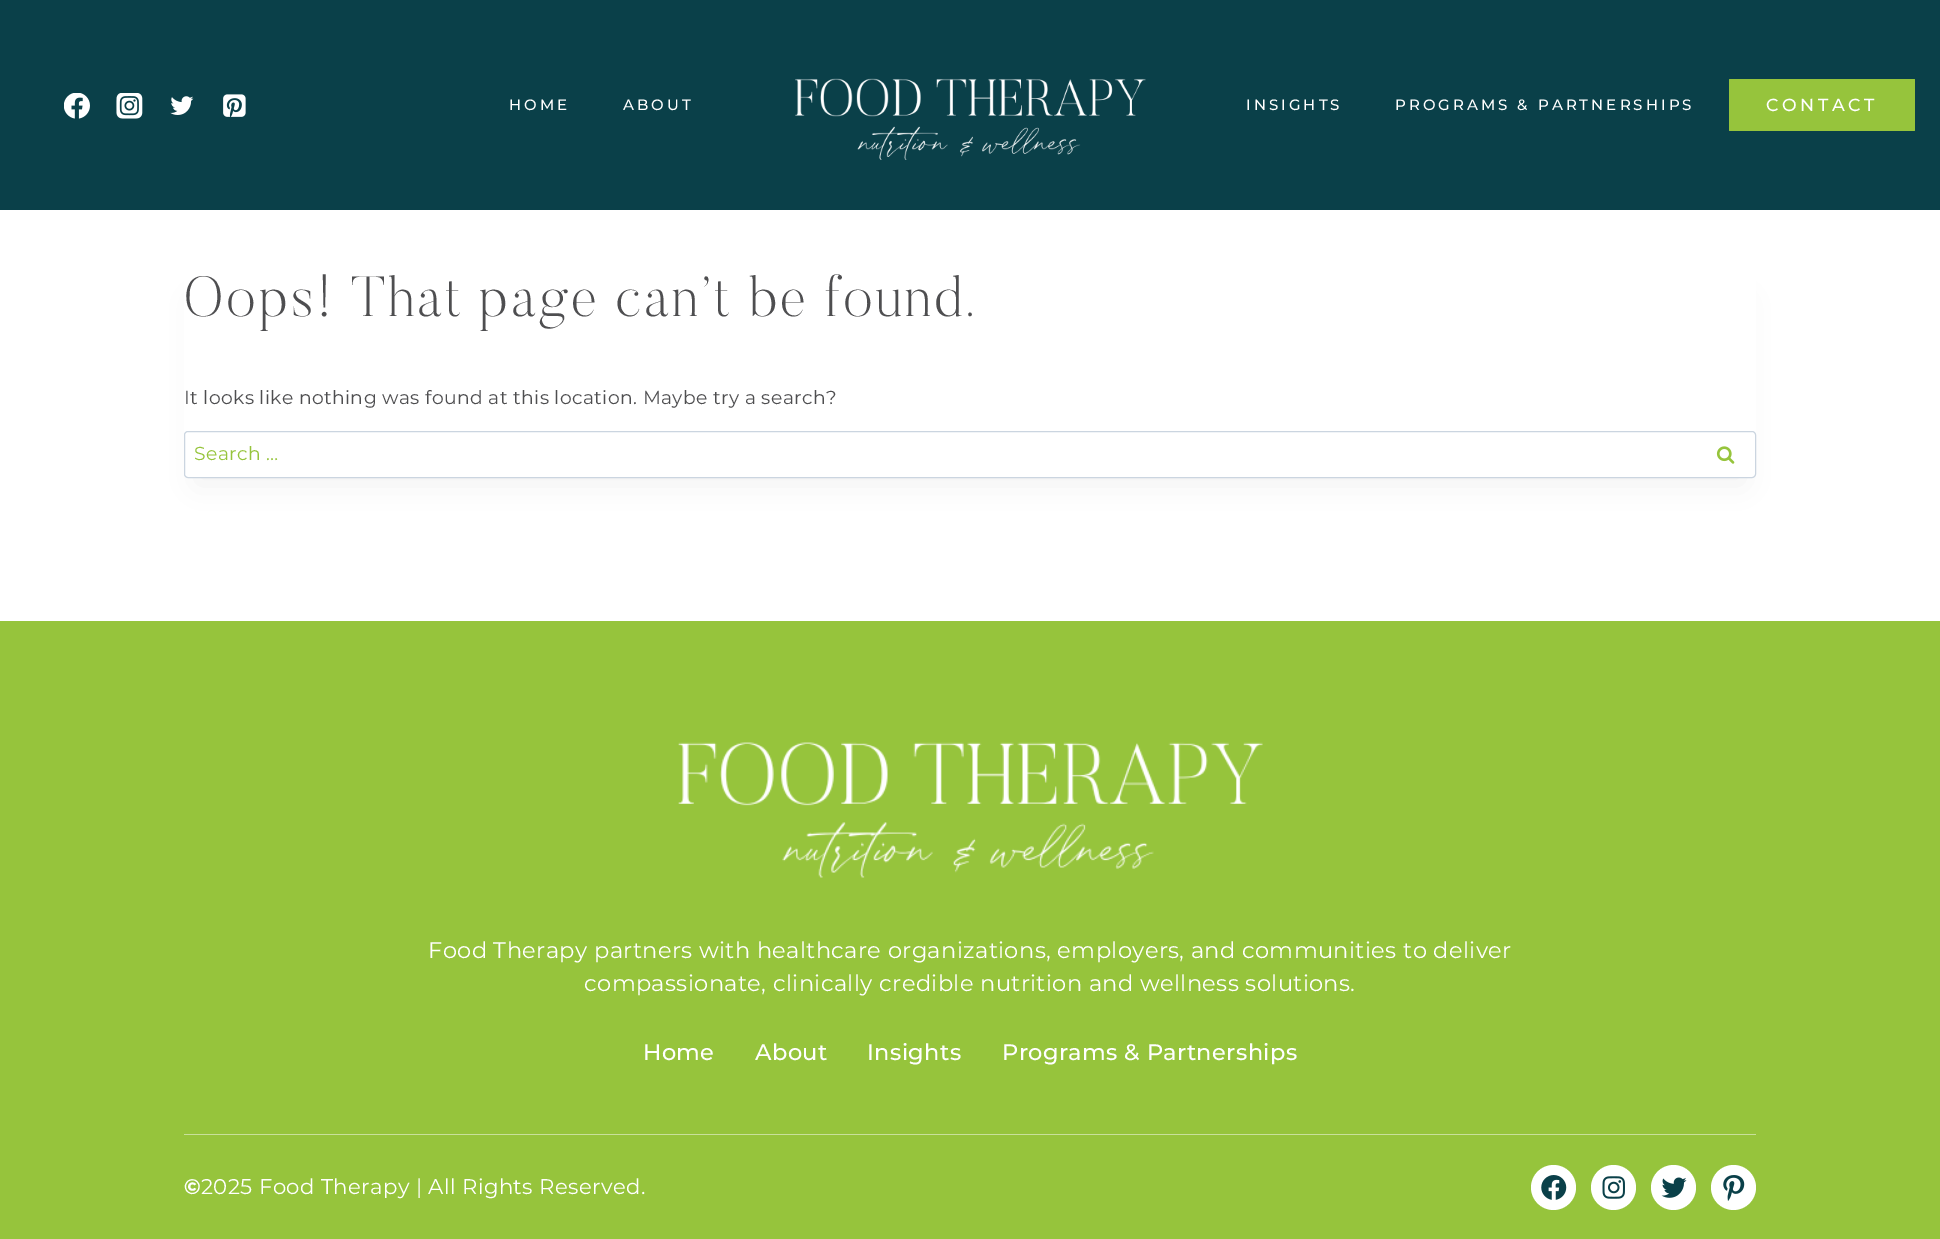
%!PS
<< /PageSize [1940 1239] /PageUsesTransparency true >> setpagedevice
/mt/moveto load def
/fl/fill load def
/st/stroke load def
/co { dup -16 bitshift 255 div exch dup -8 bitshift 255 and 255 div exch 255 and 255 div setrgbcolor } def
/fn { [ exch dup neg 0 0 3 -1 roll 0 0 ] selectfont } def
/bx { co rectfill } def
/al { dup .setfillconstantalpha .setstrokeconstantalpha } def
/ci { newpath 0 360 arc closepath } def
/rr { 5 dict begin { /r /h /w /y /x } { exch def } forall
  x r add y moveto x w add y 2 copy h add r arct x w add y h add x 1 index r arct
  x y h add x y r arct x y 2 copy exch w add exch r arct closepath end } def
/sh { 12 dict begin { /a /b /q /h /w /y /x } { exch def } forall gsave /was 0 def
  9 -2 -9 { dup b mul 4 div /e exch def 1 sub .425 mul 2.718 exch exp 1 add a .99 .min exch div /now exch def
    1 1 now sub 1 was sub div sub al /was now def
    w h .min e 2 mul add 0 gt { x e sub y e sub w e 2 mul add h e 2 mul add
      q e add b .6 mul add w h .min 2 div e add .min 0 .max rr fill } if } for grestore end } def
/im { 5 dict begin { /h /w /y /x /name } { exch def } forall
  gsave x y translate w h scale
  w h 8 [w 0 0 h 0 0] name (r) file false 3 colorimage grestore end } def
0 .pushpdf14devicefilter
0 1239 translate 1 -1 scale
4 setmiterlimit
0 0 1940 1239 16#FFFFFF bx
0 0 1940 210 16#0A4049 bx
(media/1.raw) 64 93 26 26 im
(media/2.raw) 116 93 27 26 im
(media/3.raw) 170 96 24 19 im
(media/4.raw) 223 94 23 23 im
(media/5.raw) 795 78 351 82 im
16#96C43C co
1729 79 186 52 1 rr fl
16#000000 co
196 301 1548 183 0 15.5 .05 sh
16#FFFFFF co
184 270 1572 208 5 rr fl
16#CBD5E0 co
184.5 431.5 1571 46 3.5 rr st
(media/6.raw) 1716 446 19 18 im
0 621 1940 618 16#96C43C bx
(media/7.raw) 678 742 585 136 im
184 1134 1572 1 16#C8E09A bx
16#FFFFFF co
1553.5 1187.5 22.5 ci fl
(media/8.raw) 1541 1175 26 25 im
1613.5 1187.5 22.5 ci fl
(media/9.raw) 1602 1176 23 23 im
1673.5 1187.5 22.5 ci fl
(media/10.raw) 1661 1177 26 21 im
1733.5 1187.5 22.5 ci fl
(media/11.raw) 1723 1175 22 26 im
/Montserrat-Medium 15 fn
509 110 mt 3 0 (HOME) ashow
623 110 mt 3 0 (ABOUT) ashow
1246 110 mt 3 0 (INSIGHTS) ashow
1395 110 mt 3 0 (PROGRAMS & PARTNERSHIPS) ashow
/Montserrat-Medium 17.5 fn
1766 111 mt 3.5 0 (CONTACT) ashow
/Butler-ExtraLight 56.25 fn
16#4E4E50 co
184 316 mt 2.8 0 (Oops! That page can’t be found.) ashow
/Montserrat-Regular 18.75 fn
184 404 mt .38 0 (It looks like nothing was found at this location. Maybe try a search?) ashow
16#96C43C co
194 460 mt .38 0 (Search …) ashow
/Montserrat-Regular 22.5 fn
16#FFFFFF co
428 958 mt .38 0 (Food Therapy partners with healthcare organizations, employers, and communities to deliver) ashow
584 991 mt .38 0 (compassionate, clinically credible nutrition and wellness solutions.) ashow
/Montserrat-Medium 22.5 fn
643 1060 mt .38 0 (Home) ashow
755 1060 mt .38 0 (About) ashow
867 1060 mt .38 0 (Insights) ashow
1002 1060 mt .38 0 (Programs & Partnerships) ashow
/Montserrat-Bold 21.25 fn
184 1194 mt .38 0 (©) ashow
/Montserrat-Regular 21.25 fn
201 1194 mt .38 0 (2025 Food Therapy | All Rights Reserved.) ashow
.poppdf14devicefilter showpage
